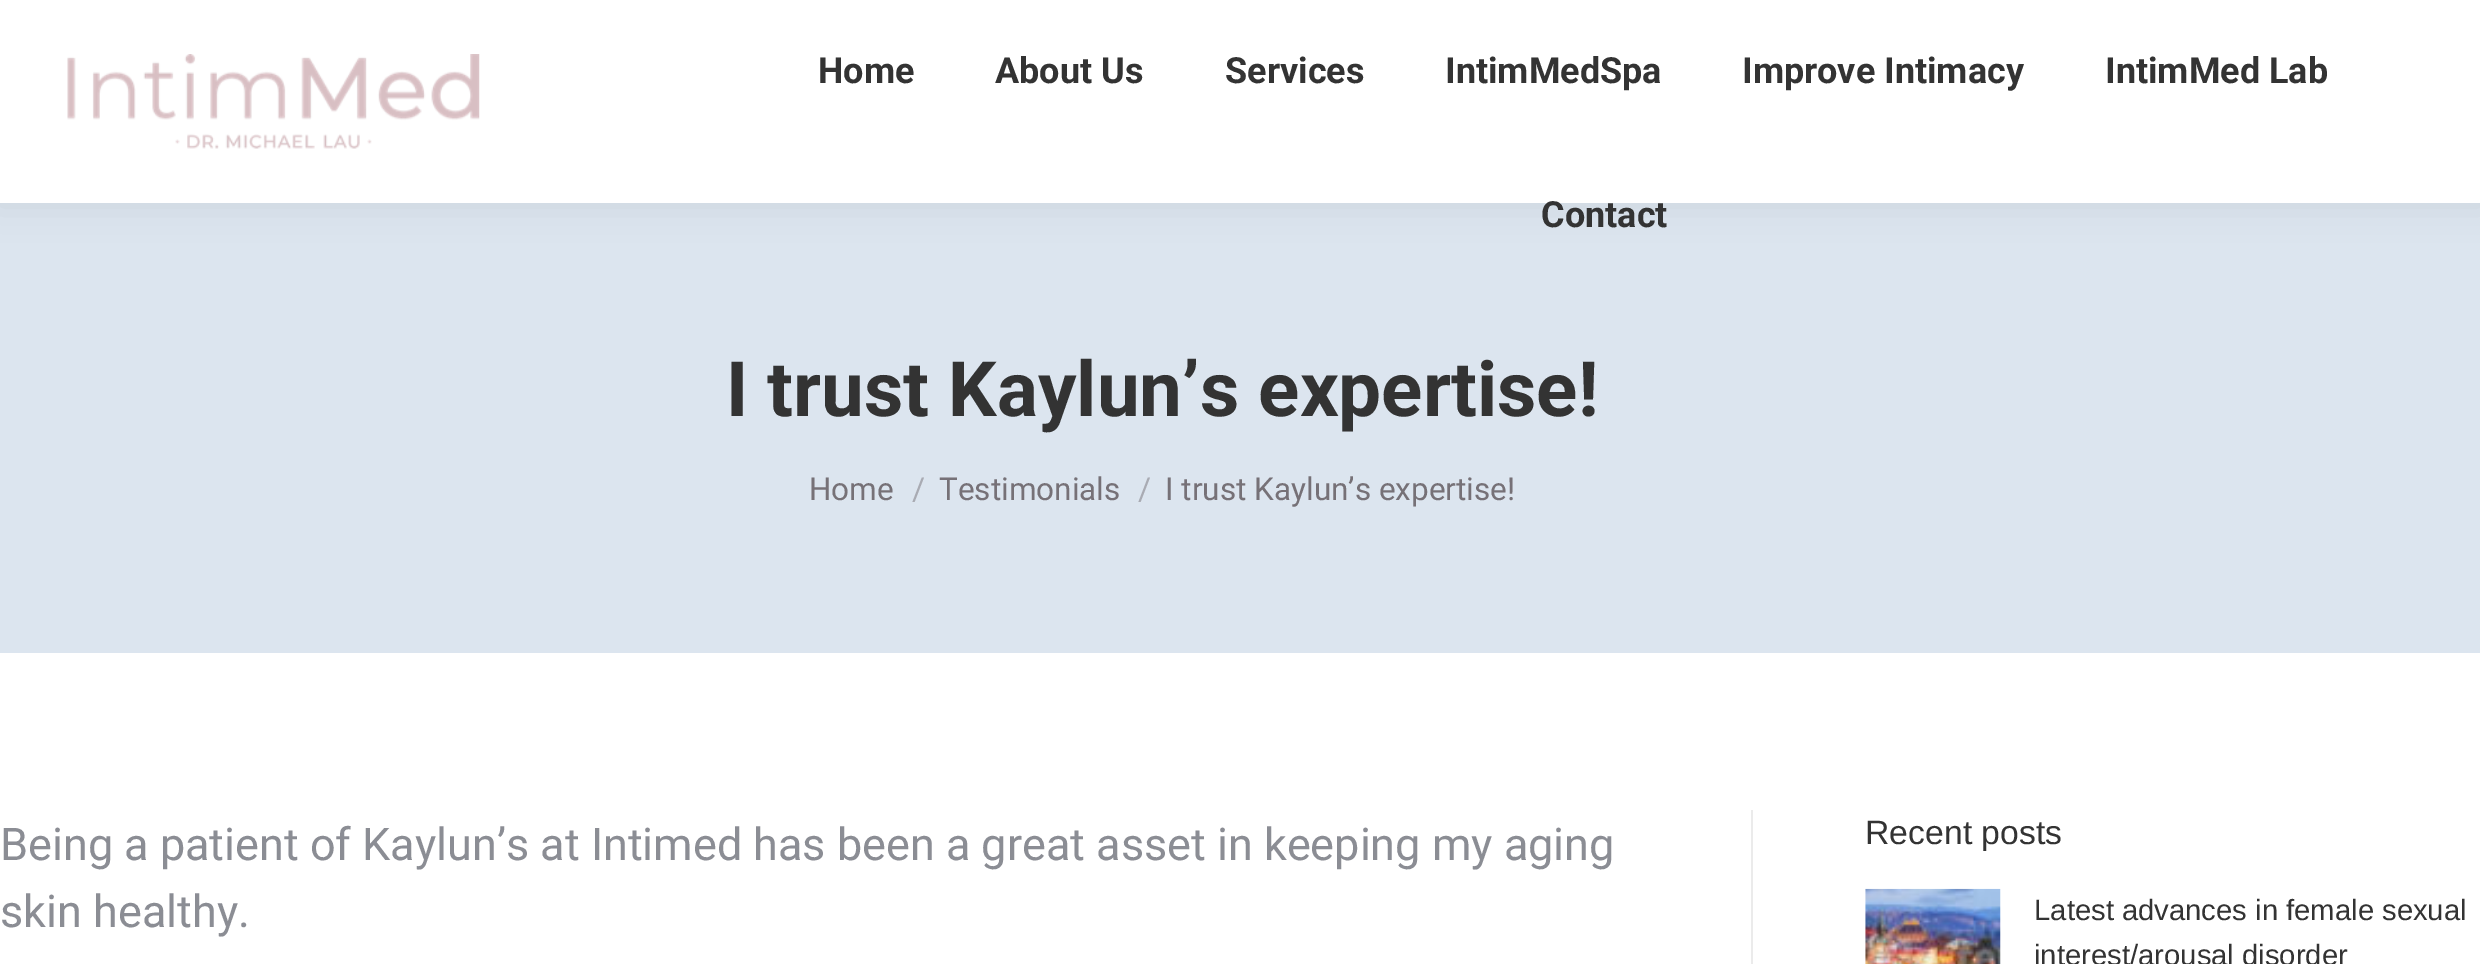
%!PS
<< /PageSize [2480 964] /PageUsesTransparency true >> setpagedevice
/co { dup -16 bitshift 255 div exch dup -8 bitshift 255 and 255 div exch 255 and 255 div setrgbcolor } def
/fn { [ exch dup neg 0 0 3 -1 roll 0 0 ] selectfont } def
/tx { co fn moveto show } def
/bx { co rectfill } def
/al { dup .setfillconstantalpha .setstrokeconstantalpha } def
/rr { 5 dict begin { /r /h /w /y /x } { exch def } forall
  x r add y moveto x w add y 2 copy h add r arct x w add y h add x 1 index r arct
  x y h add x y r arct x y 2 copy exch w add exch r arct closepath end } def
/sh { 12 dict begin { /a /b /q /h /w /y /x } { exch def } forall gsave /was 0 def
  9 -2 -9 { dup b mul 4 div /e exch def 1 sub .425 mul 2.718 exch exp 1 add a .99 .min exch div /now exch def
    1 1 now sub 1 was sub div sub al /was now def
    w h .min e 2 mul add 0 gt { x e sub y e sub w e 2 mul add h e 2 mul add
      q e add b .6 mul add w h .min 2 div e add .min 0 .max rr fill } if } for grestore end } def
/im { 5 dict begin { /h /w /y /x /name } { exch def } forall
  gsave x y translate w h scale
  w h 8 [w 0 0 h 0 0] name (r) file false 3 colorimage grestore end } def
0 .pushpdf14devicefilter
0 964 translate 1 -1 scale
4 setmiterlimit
0 0 2480 964 16#FFFFFF bx
0 203 2480 450 16#DCE5EF bx
16#000000 co
-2 -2 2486 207 0 17 .07 sh
0 0 2480 203 16#FFFFFF bx
(media/1.raw) 67 54 413 95 im
1751 810 2 154 16#EBEBEB bx
(media/2.raw) 1865 888 136 76 im
(Home) 818 83 /Roboto-Bold 36 16#333333 tx
(About Us) 995 83 /Roboto-Bold 36 16#333333 tx
(Services) 1225 83 /Roboto-Bold 36 16#333333 tx
(IntimMedSpa) 1445 83 /Roboto-Bold 36 16#333333 tx
(Improve Intimacy) 1742 83 /Roboto-Bold 36 16#333333 tx
(IntimMed Lab) 2105 83 /Roboto-Bold 36 16#333333 tx
(Contact) 1541 227 /Roboto-Bold 36 16#333333 tx
(I trust Kaylun’s expertise!) 726 416 /Roboto-Bold 76.5 16#333333 tx
(Home) 809 500 /Roboto-Regular 31.5 16#767177 tx
(/) 912 500 /Roboto-Regular 31.5 16#A9ABB3 tx
(Testimonials) 939 500 /Roboto-Regular 31.5 16#767177 tx
(/) 1138 500 /Roboto-Regular 31.5 16#A9ABB3 tx
(I trust Kaylun’s expertise!) 1165 500 /Roboto-Regular 31.5 16#767177 tx
(Being a patient of Kaylun’s at Intimed has been a great asset in keeping my aging) 0 860 /Roboto-Regular 45 16#8B8D94 tx
(skin healthy.) 0 927 /Roboto-Regular 45 16#8B8D94 tx
(Recent posts) 1865 844 /LiberationSans-Regular 33.75 16#333333 tx
(Latest advances in female sexual) 2034 920 /LiberationSans-Regular 29.25 16#333333 tx
(interest/arousal disorder) 2034 965 /LiberationSans-Regular 29.25 16#333333 tx
.poppdf14devicefilter showpage
